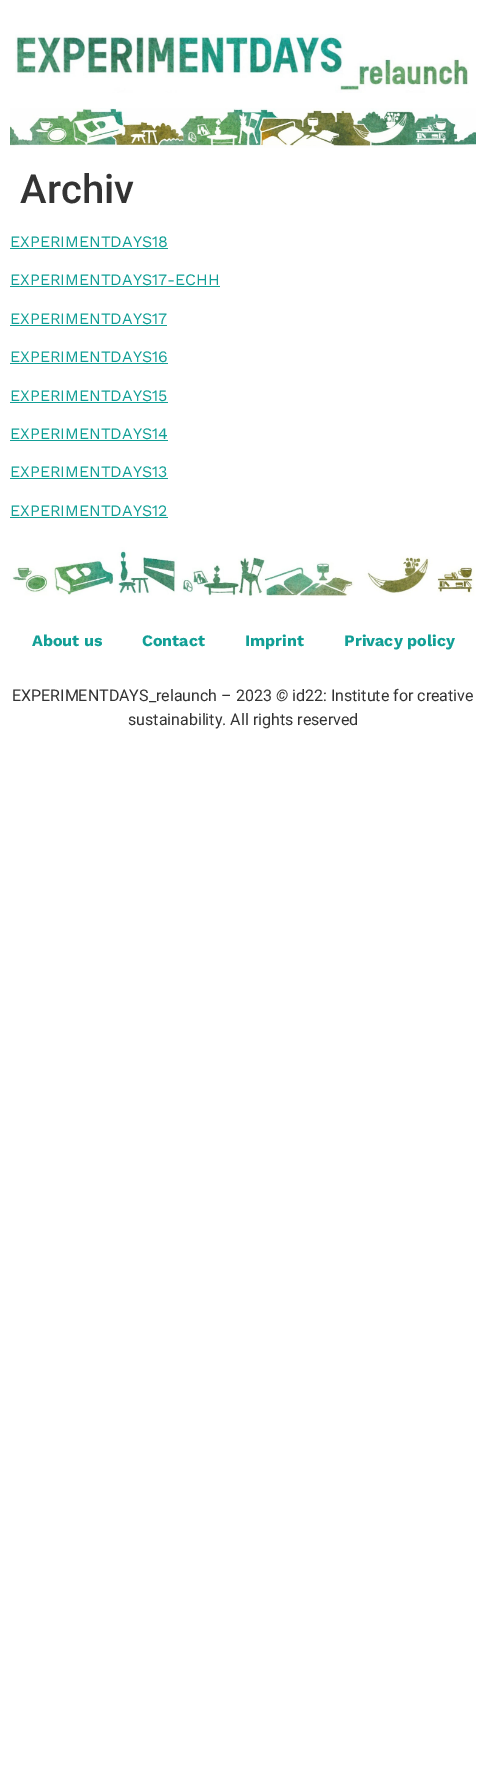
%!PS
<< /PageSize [486 1783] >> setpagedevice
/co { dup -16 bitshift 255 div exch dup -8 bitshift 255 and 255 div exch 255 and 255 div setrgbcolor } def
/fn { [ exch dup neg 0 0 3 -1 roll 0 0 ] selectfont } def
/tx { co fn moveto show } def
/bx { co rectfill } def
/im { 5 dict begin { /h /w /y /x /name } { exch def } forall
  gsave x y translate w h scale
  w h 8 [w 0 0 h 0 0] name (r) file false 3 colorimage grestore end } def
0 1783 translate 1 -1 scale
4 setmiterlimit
0 0 486 1783 16#FFFFFF bx
(media/1.raw) 15 34 454 59 im
(media/2.raw) 10 108 466 40 im
10 248 158 1 16#129F96 bx
10 286 210 1 16#129F96 bx
10 325 157 1 16#129F96 bx
10 363 158 1 16#129F96 bx
10 402 158 1 16#129F96 bx
10 440 158 1 16#129F96 bx
10 478 158 1 16#129F96 bx
10 517 158 1 16#129F96 bx
(media/3.raw) 10 547 465 51 im
(Archiv) 20 203 /Roboto-Medium 40 16#333333 tx
(EXPERIMENTDAYS18) 10 247 /WorkSans-Regular 16 16#129F96 tx
(EXPERIMENTDAYS17-ECHH) 10 285 /WorkSans-Regular 16 16#129F96 tx
(EXPERIMENTDAYS17) 10 324 /WorkSans-Regular 16 16#129F96 tx
(EXPERIMENTDAYS16) 10 362 /WorkSans-Regular 16 16#129F96 tx
(EXPERIMENTDAYS15) 10 401 /WorkSans-Regular 16 16#129F96 tx
(EXPERIMENTDAYS14) 10 439 /WorkSans-Regular 16 16#129F96 tx
(EXPERIMENTDAYS13) 10 477 /WorkSans-Regular 16 16#129F96 tx
(EXPERIMENTDAYS12) 10 516 /WorkSans-Regular 16 16#129F96 tx
(About us) 32 646 /WorkSans-Bold 16 16#129F96 tx
(Contact) 142 646 /WorkSans-Bold 16 16#129F96 tx
(Imprint) 245 646 /WorkSans-Bold 16 16#129F96 tx
(Privacy policy) 344 646 /WorkSans-Bold 16 16#129F96 tx
(EXPERIMENTDAYS_relaunch – 2023) 12 701 /Roboto-Regular 16 16#333333 tx
(©) 276 701 /Roboto-BoldItalic 16 16#333333 tx
(id22: Institute for creative) 292 701 /Roboto-Regular 16 16#333333 tx
(sustainability. All rights reserved) 128 725 /Roboto-Regular 16 16#333333 tx
showpage
